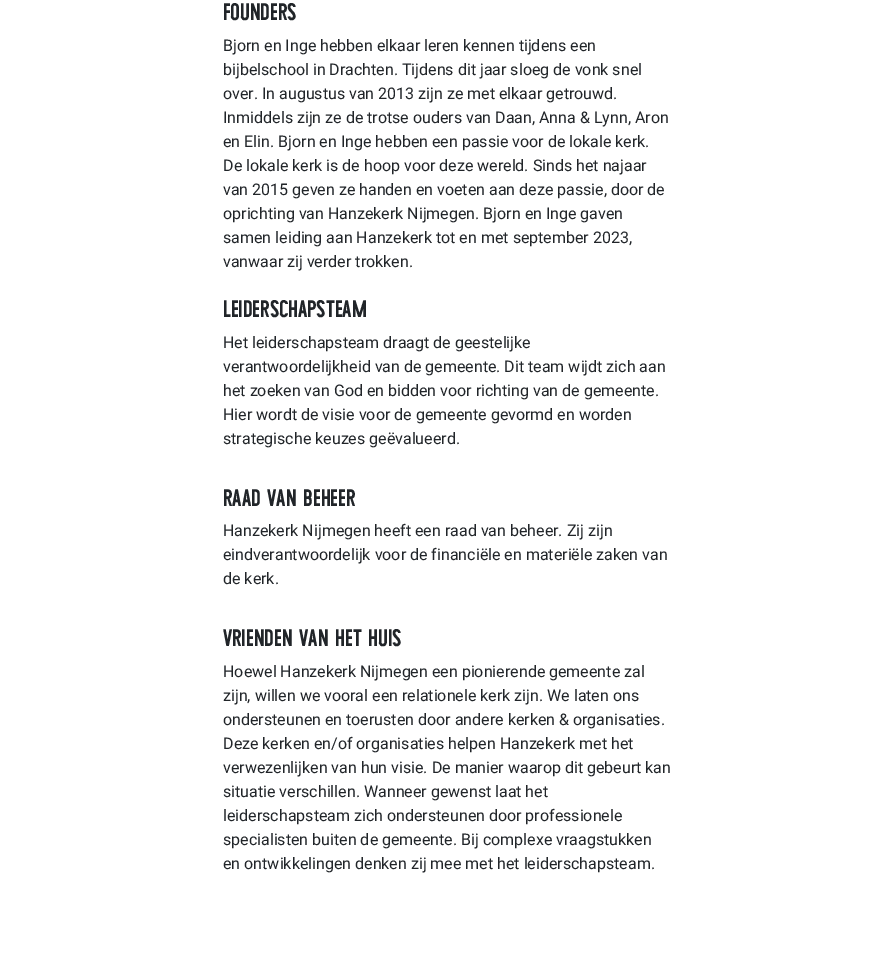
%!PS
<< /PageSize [894 954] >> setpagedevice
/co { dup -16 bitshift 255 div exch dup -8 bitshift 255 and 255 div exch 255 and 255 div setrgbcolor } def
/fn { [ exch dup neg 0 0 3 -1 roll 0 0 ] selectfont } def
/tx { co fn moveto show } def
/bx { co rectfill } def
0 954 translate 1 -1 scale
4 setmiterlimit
0 0 894 954 16#FFFFFF bx
(FOUNDERS) 223 20 /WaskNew-Bold 24 16#212529 tx
(Bjorn en Inge hebben elkaar leren kennen tijdens een) 223 51 /Roboto-Regular 16 16#212529 tx
(bijbelschool in Drachten. Tijdens dit jaar sloeg de vonk snel) 223 75 /Roboto-Regular 16 16#212529 tx
(over. In augustus van 2013 zijn ze met elkaar getrouwd.) 223 99 /Roboto-Regular 16 16#212529 tx
(Inmiddels zijn ze de trotse ouders van Daan, Anna & Lynn, Aron) 223 123 /Roboto-Regular 16 16#212529 tx
(en Elin. Bjorn en Inge hebben een passie voor de lokale kerk.) 223 147 /Roboto-Regular 16 16#212529 tx
(De lokale kerk is de hoop voor deze wereld. Sinds het najaar) 223 171 /Roboto-Regular 16 16#212529 tx
(van 2015 geven ze handen en voeten aan deze passie, door de) 223 195 /Roboto-Regular 16 16#212529 tx
(oprichting van Hanzekerk Nijmegen. Bjorn en Inge gaven) 223 219 /Roboto-Regular 16 16#212529 tx
(samen leiding aan Hanzekerk tot en met september 2023,) 223 243 /Roboto-Regular 16 16#212529 tx
(vanwaar zij verder trokken.) 223 267 /Roboto-Regular 16 16#212529 tx
(LEIDERSCHAPSTEAM) 223 317 /WaskNew-Bold 24 16#212529 tx
(Het leiderschapsteam draagt de geestelijke) 223 348 /Roboto-Regular 16 16#212529 tx
(verantwoordelijkheid van de gemeente. Dit team wijdt zich aan) 223 372 /Roboto-Regular 16 16#212529 tx
(het zoeken van God en bidden voor richting van de gemeente.) 223 396 /Roboto-Regular 16 16#212529 tx
(Hier wordt de visie voor de gemeente gevormd en worden) 223 420 /Roboto-Regular 16 16#212529 tx
(strategische keuzes geëvalueerd.) 223 444 /Roboto-Regular 16 16#212529 tx
(RAAD) 223 506 /WaskNew-Bold 24 16#212529 tx
(VAN) 267 506 /WaskNew-Bold 24 16#212529 tx
(BEHEER) 303 506 /WaskNew-Bold 24 16#212529 tx
(Hanzekerk Nijmegen heeft een raad van beheer. Zij zijn) 223 536 /Roboto-Regular 16 16#212529 tx
(eindverantwoordelijk voor de financiële en materiële zaken van) 223 560 /Roboto-Regular 16 16#212529 tx
(de kerk.) 223 584 /Roboto-Regular 16 16#212529 tx
(VRIENDEN) 223 646 /WaskNew-Bold 24 16#212529 tx
(VAN) 299 646 /WaskNew-Bold 24 16#212529 tx
(HET) 335 646 /WaskNew-Bold 24 16#212529 tx
(HUIS) 368 646 /WaskNew-Bold 24 16#212529 tx
(Hoewel Hanzekerk Nijmegen een pionierende gemeente zal) 223 677 /Roboto-Regular 16 16#212529 tx
(zijn, willen we vooral een relationele kerk zijn. We laten ons) 223 701 /Roboto-Regular 16 16#212529 tx
(ondersteunen en toerusten door andere kerken & organisaties.) 223 725 /Roboto-Regular 16 16#212529 tx
(Deze kerken en/of organisaties helpen Hanzekerk met het) 223 749 /Roboto-Regular 16 16#212529 tx
(verwezenlijken van hun visie. De manier waarop dit gebeurt kan) 223 773 /Roboto-Regular 16 16#212529 tx
(situatie verschillen. Wanneer gewenst laat het) 223 797 /Roboto-Regular 16 16#212529 tx
(leiderschapsteam zich ondersteunen door professionele) 223 821 /Roboto-Regular 16 16#212529 tx
(specialisten buiten de gemeente. Bij complexe vraagstukken) 223 845 /Roboto-Regular 16 16#212529 tx
(en ontwikkelingen denken zij mee met het leiderschapsteam.) 223 869 /Roboto-Regular 16 16#212529 tx
showpage
